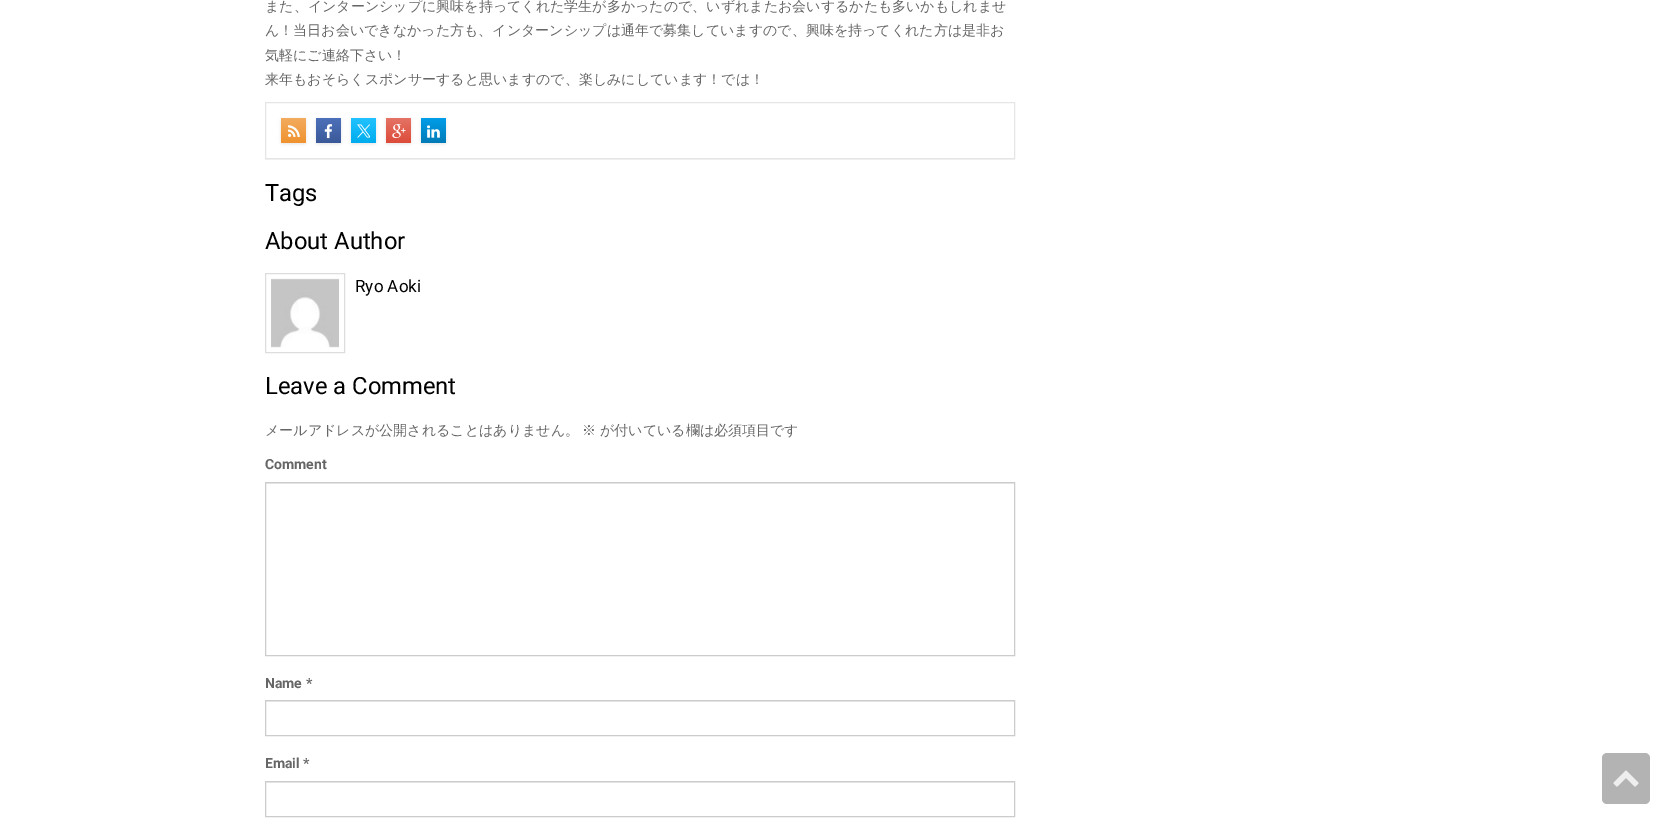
%!PS
<< /PageSize [1670 824] /PageUsesTransparency true >> setpagedevice
/fl/fill load def
/gs/gsave load def
/gr/grestore load def
/co { dup -16 bitshift 255 div exch dup -8 bitshift 255 and 255 div exch 255 and 255 div setrgbcolor } def
/fn { [ exch dup neg 0 0 3 -1 roll 0 0 ] selectfont } def
/tx { co fn moveto show } def
/bx { co rectfill } def
/al { dup .setfillconstantalpha .setstrokeconstantalpha } def
/rr { 5 dict begin { /r /h /w /y /x } { exch def } forall
  x r add y moveto x w add y 2 copy h add r arct x w add y h add x 1 index r arct
  x y h add x y r arct x y 2 copy exch w add exch r arct closepath end } def
/sh { 12 dict begin { /a /b /q /h /w /y /x } { exch def } forall gsave /was 0 def
  9 -2 -9 { dup b mul 4 div /e exch def 1 sub .425 mul 2.718 exch exp 1 add a .99 .min exch div /now exch def
    1 1 now sub 1 was sub div sub al /was now def
    w h .min e 2 mul add 0 gt { x e sub y e sub w e 2 mul add h e 2 mul add
      q e add b .6 mul add w h .min 2 div e add .min 0 .max rr fill } if } for grestore end } def
/im { 5 dict begin { /h /w /y /x /name } { exch def } forall
  gsave x y translate w h scale
  w h 8 [w 0 0 h 0 0] name (r) file false 3 colorimage grestore end } def
0 .pushpdf14devicefilter
0 824 translate 1 -1 scale
4 setmiterlimit
0 0 1670 824 16#FFFFFF bx
gs
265 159 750 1 rectclip
16#000000 co
265 103 750 57 0 .5 .05 sh
gr
16#E5E5E5 co
265.5 102.5 749 56 rectstroke
16#000000 co
281 119 25 25 2 1.5 .1 sh
gs 281 118 25 25 2 rr clip newpath
<< /ShadingType 2 /ColorSpace /DeviceRGB /Coords [294 143 294 118] /Extend [true true] /Function << /FunctionType 2 /Domain [0 1] /C0 [.937 .573 .184] /C1 [.953 .671 .369] /N 1 >> >> shfill gr
(media/1.raw) 288 125 12 12 im
316 119 25 25 2 1.5 .1 sh
gs 316 118 25 25 2 rr clip newpath
<< /ShadingType 2 /ColorSpace /DeviceRGB /Coords [329 143 329 118] /Extend [true true] /Function << /FunctionType 2 /Domain [0 1] /C0 [.231 .349 .596] /C1 [.298 .439 .729] /N 1 >> >> shfill gr
(media/2.raw) 324 124 9 15 im
351 119 25 25 2 1.5 .1 sh
gs 351 118 25 25 2 rr clip newpath
<< /ShadingType 2 /ColorSpace /DeviceRGB /Coords [364 143 364 118] /Extend [true true] /Function << /FunctionType 2 /Domain [0 1] /C0 [0 .675 .929] /C1 [.129 .761 1] /N 1 >> >> shfill gr
(media/3.raw) 357 124 13 14 im
386 119 25 25 2 1.5 .1 sh
gs 386 118 25 25 2 rr clip newpath
<< /ShadingType 2 /ColorSpace /DeviceRGB /Coords [399 143 399 118] /Extend [true true] /Function << /FunctionType 2 /Domain [0 1] /C0 [.867 .294 .224] /C1 [.894 .451 .396] /N 1 >> >> shfill gr
(media/4.raw) 392 124 14 15 im
421 119 25 25 2 1.5 .1 sh
gs 421 118 25 25 2 rr clip newpath
<< /ShadingType 2 /ColorSpace /DeviceRGB /Coords [434 143 434 118] /Extend [true true] /Function << /FunctionType 2 /Domain [0 1] /C0 [0 .482 .714] /C1 [0 .616 .914] /N 1 >> >> shfill gr
(media/5.raw) 427 125 13 13 im
16#DDDDDD co
265.5 273.5 79 79 rectstroke
(media/6.raw) 271 278 68 70 im
266 483 748 1 16#ECECEC bx
16#CCCCCC co
265.5 482.5 749 173 rectstroke
266 701 748 1 16#ECECEC bx
16#CCCCCC co
265.5 700.5 749 35 rectstroke
266 782 748 1 16#ECECEC bx
16#CCCCCC co
265.5 781.5 749 35 rectstroke
16#B3B3B3 co
1602 753 48 51 5 rr fl
(media/7.raw) 1613 770 26 17 im
(また、インターンシップに興味を持ってくれた学生が多かったので、いずれまたお会いするかたも多いかもしれませ) 265 11 /WenQuanYiZenHei-Medium 14 16#666666 tx
(ん！当日お会いできなかった方も、インターンシップは通年で募集していますので、興味を持ってくれた方は是非お) 265 35 /WenQuanYiZenHei-Medium 14 16#666666 tx
(気軽にご連絡下さい！) 265 60 /WenQuanYiZenHei-Medium 14 16#666666 tx
(来年もおそらくスポンサーすると思いますので、楽しみにしています！では！) 265 84 /WenQuanYiZenHei-Medium 14 16#666666 tx
(Tags) 265 201 /Roboto-Regular 23.75 16#000000 tx
(About Author) 265 249 /Roboto-Regular 23.75 16#000000 tx
(Ryo Aoki) 355 292 /Roboto-Regular 17 16#000000 tx
(Leave a Comment) 265 394 /Roboto-Regular 23.75 16#000000 tx
(メールアドレスが公開されることはありません。) 265 435 /WenQuanYiZenHei-Medium 14 16#666666 tx
(※) 582 435 /WenQuanYiZenHei-Medium 14 16#666666 tx
(が付いている欄は必須項目です) 600 435 /WenQuanYiZenHei-Medium 14 16#666666 tx
(Comment) 265 469 /Roboto-Bold 14 16#666666 tx
(Name *) 265 688 /Roboto-Bold 14 16#666666 tx
(Email *) 265 768 /Roboto-Bold 14 16#666666 tx
.poppdf14devicefilter showpage
